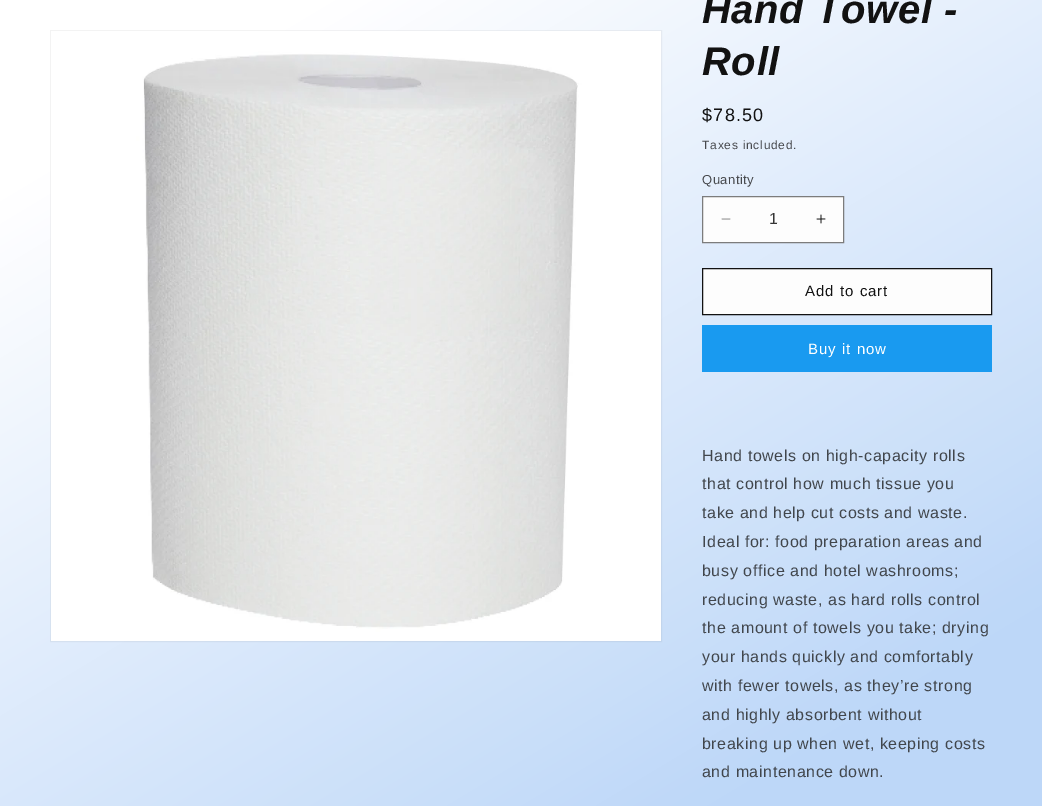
%!PS
<< /PageSize [1042 806] /PageUsesTransparency true >> setpagedevice
/mt/moveto load def
/li/lineto load def
/cp/closepath load def
/gs/gsave load def
/gr/grestore load def
/co { dup -16 bitshift 255 div exch dup -8 bitshift 255 and 255 div exch 255 and 255 div setrgbcolor } def
/fn { [ exch dup neg 0 0 3 -1 roll 0 0 ] selectfont } def
/tx { co fn moveto show } def
/bx { co rectfill } def
/al { dup .setfillconstantalpha .setstrokeconstantalpha } def
/im { 5 dict begin { /h /w /y /x /name } { exch def } forall
  gsave x y translate w h scale
  w h 8 [w 0 0 h 0 0] name (r) file false 3 colorimage grestore end } def
0 .pushpdf14devicefilter
0 806 translate 1 -1 scale
4 setmiterlimit
0 0 1042 806 16#FFFFFF bx
gs 0 0 mt 1042 0 li 1042 806 li 0 806 li cp clip newpath
<< /ShadingType 2 /ColorSpace /DeviceRGB /Coords [837 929 205 -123] /Extend [true true] /Function << /FunctionType 3 /Domain [0 1] /Functions [<< /FunctionType 2 /Domain [0 1] /C0 [.741 .843 .973] /C1 [.741 .843 .973] /N 1 >> << /FunctionType 2 /Domain [0 1] /C0 [.741 .843 .973] /C1 [1 1 1] /N 1 >> << /FunctionType 2 /Domain [0 1] /C0 [1 1 1] /C1 [1 1 1] /N 1 >>] /Bounds [.13 .86] /Encode [0 1 0 1 0 1] >> >> shfill gr
0.05 al
16#121212 co
50.5 30.5 611 611 rectstroke
1 al
(media/1.raw) 51 31 610 610 im
703 197 140 45 16#FDFDFD bx
(media/2.raw) 721 218 10 2 im
(media/3.raw) 816 214 10 10 im
16#7C7C7C co
702.5 196.5 141 46 rectstroke
703 269 288 45 16#FDFDFD bx
16#121212 co
702.5 268.5 289 46 rectstroke
702 325 290 47 16#199AF0 bx
/LiberationSans-BoldItalic 40 fn
16#121212 co
702 23 mt .6 0 (Hand Towel -) ashow
702 75 mt .6 0 (Roll) ashow
/LiberationSans-Regular 18 fn
702 121 mt 1.25 0 ($78.50) ashow
/LiberationSans-Regular 12 fn
16#47494D co
702 149 mt .75 0 (Taxes included.) ashow
/LiberationSans-Regular 13 fn
702 184 mt .5 0 (Quantity) ashow
(1) 769 224 /LiberationSans-Regular 16 16#353535 tx
/LiberationSans-Regular 15 fn
16#121212 co
805 296 mt 1 0 (Add to cart) ashow
16#FFFFFF co
808 354 mt 1 0 (Buy it now) ashow
/LiberationSans-Regular 16 fn
16#41464C co
702 461 mt .6 0 (Hand towels on high-capacity rolls) ashow
702 489 mt .6 0 (that control how much tissue you) ashow
702 518 mt .6 0 (take and help cut costs and waste.) ashow
702 547 mt .6 0 (Ideal for: food preparation areas and) ashow
702 576 mt .6 0 (busy office and hotel washrooms;) ashow
702 605 mt .6 0 (reducing waste, as hard rolls control) ashow
702 633 mt .6 0 (the amount of towels you take; drying) ashow
702 662 mt .6 0 (your hands quickly and comfortably) ashow
702 691 mt .6 0 (with fewer towels, as they’re strong) ashow
702 720 mt .6 0 (and highly absorbent without) ashow
702 749 mt .6 0 (breaking up when wet, keeping costs) ashow
702 777 mt .6 0 (and maintenance down.) ashow
.poppdf14devicefilter showpage
